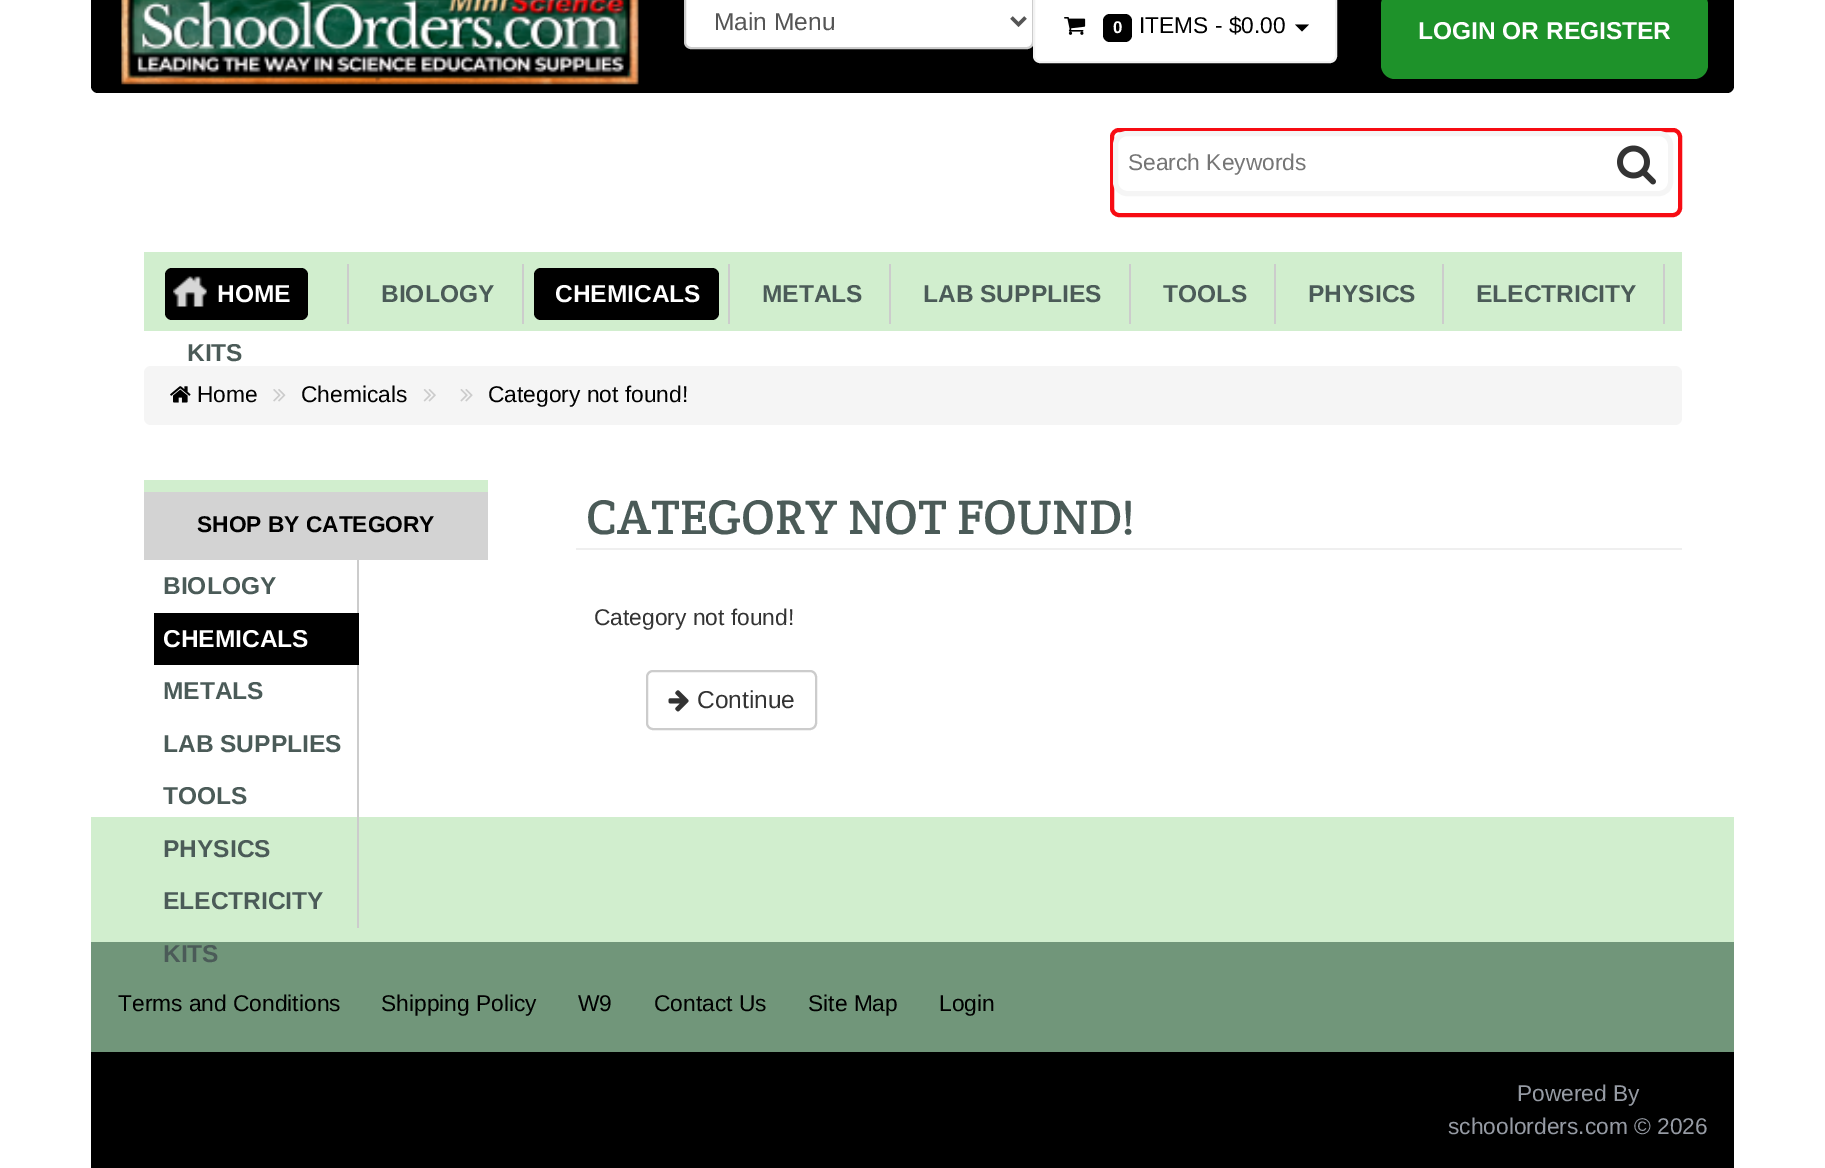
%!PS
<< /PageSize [1825 1168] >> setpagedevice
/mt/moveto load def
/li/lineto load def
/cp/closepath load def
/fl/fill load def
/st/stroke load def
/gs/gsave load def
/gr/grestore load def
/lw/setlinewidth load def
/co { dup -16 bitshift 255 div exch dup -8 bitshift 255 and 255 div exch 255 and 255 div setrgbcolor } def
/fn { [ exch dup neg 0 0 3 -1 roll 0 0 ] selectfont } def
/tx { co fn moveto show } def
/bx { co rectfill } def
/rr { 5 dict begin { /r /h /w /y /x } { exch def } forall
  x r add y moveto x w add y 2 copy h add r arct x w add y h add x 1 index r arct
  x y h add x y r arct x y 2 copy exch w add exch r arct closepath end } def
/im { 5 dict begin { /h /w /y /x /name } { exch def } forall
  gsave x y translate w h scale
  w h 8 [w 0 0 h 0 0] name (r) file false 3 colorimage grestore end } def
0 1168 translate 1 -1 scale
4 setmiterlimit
0 0 1825 1168 16#FFFFFF bx
16#000000 co
91 -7 1643 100 7 rr fl
(media/1.raw) 121 0 518 85 im
16#FFFFFF co
685 -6 348 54 6 rr gs fl gr
16#CCCCCC co
2 lw
st
16#555555 co
3.5 lw
1011.5 17.5 mt 1018.5 24.5 li 1025.5 17.5 li st
16#FFFFFF co
1034 -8 302 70 6 rr gs fl gr
16#F2F2F2 co
2 lw
st
(media/2.raw) 1064 17 22 18 im
16#000000 co
1103 14 29 28 7 rr fl
1295 24.5 mt 1309 24.5 li 1302 31.5 li cp fl
16#1E922A co
1381 -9 327 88 14 rr fl
16#F70C13 co
4 lw
1112 130 568 85 7 rr st
16#FFFFFF co
1115.5 133.5 555 60 11.5 rr gs fl gr
16#F5F5F5 co
5 lw
st
(media/3.raw) 1617 145 39 40 im
144 252 1538 79 16#D1EECE bx
347 264 2 60 16#CCCCCC bx
16#000000 co
165 268 143 52 7 rr fl
(media/4.raw) 173 276 34 31 im
522 264 2 60 16#CCCCCC bx
728 264 2 60 16#CCCCCC bx
16#000000 co
534 268 185 52 7 rr fl
889 264 2 60 16#CCCCCC bx
1129 264 2 60 16#CCCCCC bx
1274 264 2 60 16#CCCCCC bx
1442 264 2 60 16#CCCCCC bx
1663 264 2 60 16#CCCCCC bx
16#F5F5F5 co
144 366 1538 59 7 rr fl
(media/5.raw) 170 386 21 17 im
(media/6.raw) 273 389 13 13 im
(media/7.raw) 423 389 13 13 im
(media/8.raw) 460 389 13 13 im
144 480 344 12 16#D1EECE bx
144 492 344 68 16#D3D3D3 bx
357 560 2 53 16#CCCCCC bx
154 613 205 52 16#000000 bx
91 817 1643 125 16#D1EECE bx
357 665 2 263 16#CCCCCC bx
576 548 1106 2 16#EFEFEF bx
16#CCCCCC co
2 lw
647 671 169 58 6 rr st
(media/9.raw) 668 690 21 22 im
91 942 1643 110 16#71967A bx
91 1052 1643 116 16#000000 bx
(Main Menu) 714 30 /LiberationSans-Regular 24.5 16#555555 tx
(0) 1113 33 /LiberationSans-Bold 17 16#FFFFFF tx
(ITEMS - $0.00) 1139 33 /LiberationSans-Regular 22.75 16#000000 tx
(LOGIN OR REGISTER) 1418 39 /LiberationSans-Bold 24.5 16#FFFFFF tx
(Search Keywords) 1128 170 /LiberationSans-Regular 22.75 16#757575 tx
(HOME) 217 302 /LiberationSans-Bold 24.5 16#FFFFFF tx
(BIOLOGY) 381 302 /LiberationSans-Bold 24.5 16#4B5B58 tx
(CHEMICALS) 555 302 /LiberationSans-Bold 24.5 16#FFFFFF tx
(METALS) 762 302 /LiberationSans-Bold 24.5 16#4B5B58 tx
(LAB SUPPLIES) 923 302 /LiberationSans-Bold 24.5 16#4B5B58 tx
(TOOLS) 1163 302 /LiberationSans-Bold 24.5 16#4B5B58 tx
(PHYSICS) 1308 302 /LiberationSans-Bold 24.5 16#4B5B58 tx
(ELECTRICITY) 1476 302 /LiberationSans-Bold 24.5 16#4B5B58 tx
(KITS) 187 361 /LiberationSans-Bold 24.5 16#4B5B58 tx
(Home) 197 402 /LiberationSans-Regular 22.75 16#000000 tx
(Chemicals) 301 402 /LiberationSans-Regular 22.75 16#000000 tx
(Category not found!) 488 402 /LiberationSans-Regular 22.75 16#000000 tx
(SHOP BY CATEGORY) 197 532 /LiberationSans-Bold 22.75 16#000000 tx
(BIOLOGY) 163 594 /LiberationSans-Bold 24.5 16#4B5B58 tx
(CHEMICALS) 163 647 /LiberationSans-Bold 24.5 16#FFFFFF tx
(METALS) 163 699 /LiberationSans-Bold 24.5 16#4B5B58 tx
(LAB SUPPLIES) 163 752 /LiberationSans-Bold 24.5 16#4B5B58 tx
(TOOLS) 163 804 /LiberationSans-Bold 24.5 16#4B5B58 tx
(PHYSICS) 163 857 /LiberationSans-Bold 24.5 16#4B5B58 tx
(ELECTRICITY) 163 909 /LiberationSans-Bold 24.5 16#4B5B58 tx
(KITS) 163 962 /LiberationSans-Bold 24.5 16#4B5B58 tx
(CATEGORY NOT FOUND!) 586 534 /CreteRound-Regular 49 16#4B5B58 tx
(Category not found!) 594 625 /LiberationSans-Regular 22.75 16#333333 tx
(Continue) 697 708 /LiberationSans-Regular 24.5 16#333333 tx
(Terms and Conditions) 118 1011 /LiberationSans-Regular 22.75 16#000000 tx
(Shipping Policy) 381 1011 /LiberationSans-Regular 22.75 16#000000 tx
(W9) 578 1011 /LiberationSans-Regular 22.75 16#000000 tx
(Contact Us) 654 1011 /LiberationSans-Regular 22.75 16#000000 tx
(Site Map) 808 1011 /LiberationSans-Regular 22.75 16#000000 tx
(Login) 939 1011 /LiberationSans-Regular 22.75 16#000000 tx
(Powered By) 1517 1101 /LiberationSans-Regular 22.75 16#969BA4 tx
(schoolorders.com © 2026) 1448 1134 /LiberationSans-Regular 22.75 16#969BA4 tx
showpage
